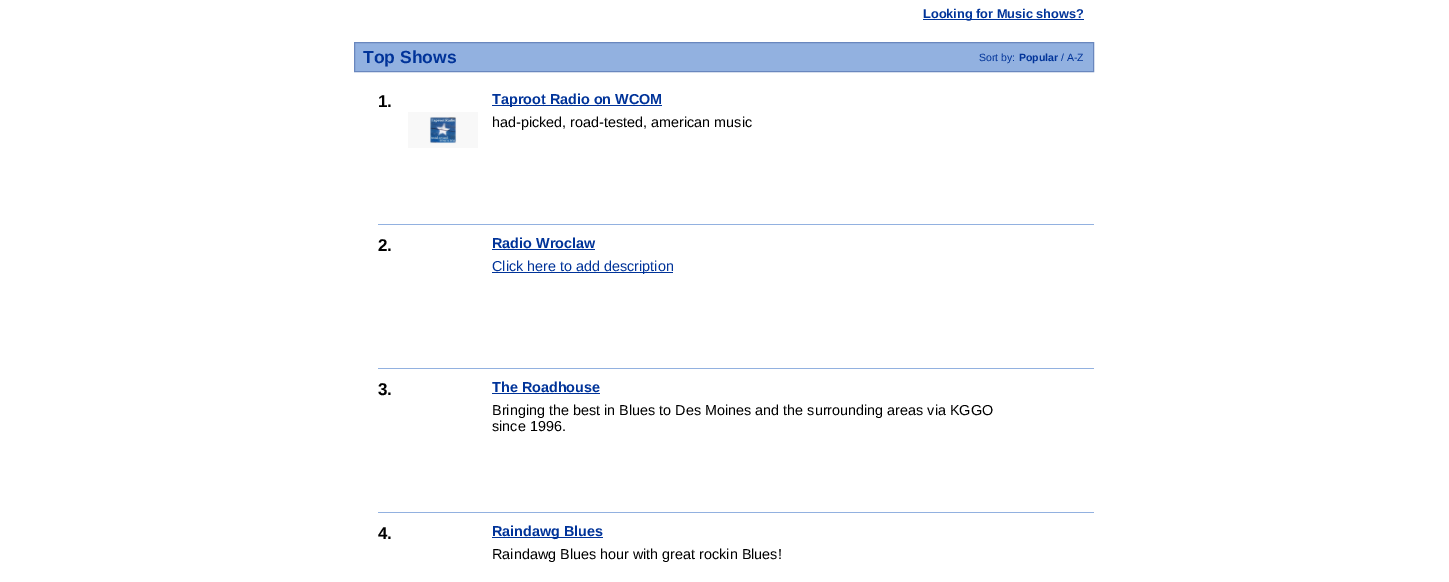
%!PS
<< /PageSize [1449 582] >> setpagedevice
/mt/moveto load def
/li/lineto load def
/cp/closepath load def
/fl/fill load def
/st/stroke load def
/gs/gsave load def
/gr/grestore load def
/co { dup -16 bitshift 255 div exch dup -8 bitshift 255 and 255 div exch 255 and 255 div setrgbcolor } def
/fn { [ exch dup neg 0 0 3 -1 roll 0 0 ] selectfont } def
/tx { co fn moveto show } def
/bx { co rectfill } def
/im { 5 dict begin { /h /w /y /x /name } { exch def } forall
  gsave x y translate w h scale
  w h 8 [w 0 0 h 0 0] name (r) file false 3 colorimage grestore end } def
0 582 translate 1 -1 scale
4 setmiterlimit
0 0 1449 582 16#FFFFFF bx
923 19 161 1 16#003399 bx
16#92B1E0 co
354.5 42.5 mt 1093.5 42.5 li 1093.5 71.5 li 354.5 71.5 li cp gs fl gr
16#6987BE co
st
378 224 716 1 16#92B1E0 bx
492 105 170 1 16#003399 bx
(media/1.raw) 408 112 70 36 im
378 368 716 1 16#92B1E0 bx
492 249 103 1 16#003399 bx
492 272 181 1 16#003399 bx
378 512 716 1 16#92B1E0 bx
492 393 108 1 16#003399 bx
492 537 111 1 16#003399 bx
(Looking for Music shows?) 923 18 /LiberationSans-Bold 12.75 16#003399 tx
(Top Shows) 363 63 /LiberationSans-Bold 17.5 16#003399 tx
(Sort by:) 979 61 /LiberationSans-Regular 10.5 16#003399 tx
(Popular) 1019 61 /LiberationSans-Bold 10.5 16#003399 tx
(/ A-Z) 1061 61 /LiberationSans-Regular 10.5 16#003399 tx
(1.) 378 107 /LiberationSans-Bold 17 16#000000 tx
(Taproot Radio on WCOM) 492 104 /LiberationSans-Bold 14.4 16#003399 tx
(had-picked, road-tested, american music) 492 127 /LiberationSans-Regular 14.4 16#000000 tx
(2.) 378 251 /LiberationSans-Bold 17 16#000000 tx
(Radio Wroclaw) 492 248 /LiberationSans-Bold 14.4 16#003399 tx
(Click here to add description) 492 271 /LiberationSans-Regular 14.4 16#003399 tx
(3.) 378 395 /LiberationSans-Bold 17 16#000000 tx
(The Roadhouse) 492 392 /LiberationSans-Bold 14.4 16#003399 tx
(Bringing the best in Blues to Des Moines and the surrounding areas via KGGO) 492 415 /LiberationSans-Regular 14.4 16#000000 tx
(since 1996.) 492 431 /LiberationSans-Regular 14.4 16#000000 tx
(4.) 378 539 /LiberationSans-Bold 17 16#000000 tx
(Raindawg Blues) 492 536 /LiberationSans-Bold 14.4 16#003399 tx
(Raindawg Blues hour with great rockin Blues!) 492 559 /LiberationSans-Regular 14.4 16#000000 tx
showpage
